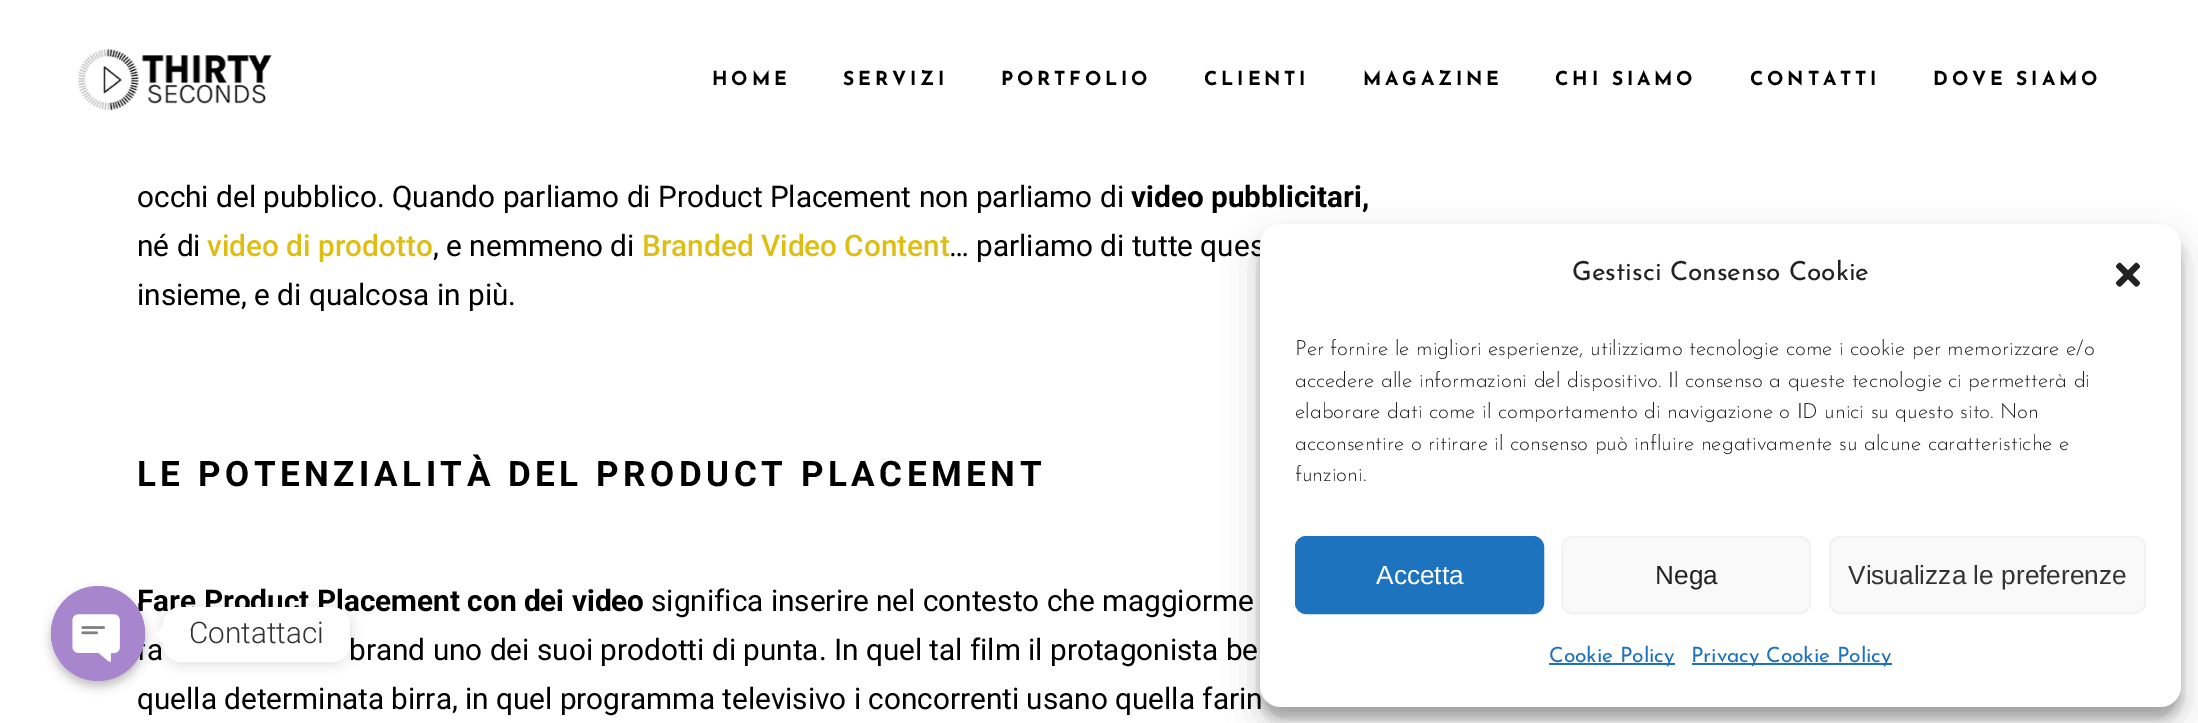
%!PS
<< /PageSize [2198 723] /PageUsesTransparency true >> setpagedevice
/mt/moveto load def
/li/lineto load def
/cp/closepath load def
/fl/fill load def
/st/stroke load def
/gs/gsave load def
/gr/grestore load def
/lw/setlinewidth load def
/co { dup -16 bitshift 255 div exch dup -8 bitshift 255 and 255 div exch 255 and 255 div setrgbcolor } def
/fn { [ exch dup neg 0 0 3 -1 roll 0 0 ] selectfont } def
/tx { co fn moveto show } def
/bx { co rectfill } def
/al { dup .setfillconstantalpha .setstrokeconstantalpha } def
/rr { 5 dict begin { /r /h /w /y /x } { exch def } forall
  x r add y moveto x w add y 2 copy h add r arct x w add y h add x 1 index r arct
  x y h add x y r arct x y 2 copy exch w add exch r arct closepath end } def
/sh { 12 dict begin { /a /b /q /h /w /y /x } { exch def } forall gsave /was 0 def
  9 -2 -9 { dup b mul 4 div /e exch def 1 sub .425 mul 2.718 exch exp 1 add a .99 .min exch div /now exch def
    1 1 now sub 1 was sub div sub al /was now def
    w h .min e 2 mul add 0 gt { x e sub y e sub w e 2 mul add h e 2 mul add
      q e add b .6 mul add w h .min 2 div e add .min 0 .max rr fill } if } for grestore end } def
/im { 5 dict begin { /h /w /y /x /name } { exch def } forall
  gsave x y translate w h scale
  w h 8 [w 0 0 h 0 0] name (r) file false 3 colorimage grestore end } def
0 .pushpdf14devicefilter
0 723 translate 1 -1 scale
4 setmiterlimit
0 0 2198 723 16#FFFFFF bx
(media/1.raw) 78 49 194 62 im
16#000000 co
163 609 187 54 18 7 .15 sh
16#FFFFFF co
163 625.5 mt 163 643 li 154 634.5 li cp fl
16#000000 co
51 592 94 94 47 5 .25 sh
1260 235 921 483 21 5 .23 sh
1260 242 921 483 21 17.5 .19 sh
/JosefinSans-Bold 19.25 fn
712 85 mt 3.8 0 (HOME) ashow
843 85 mt 3.8 0 (SERVIZI) ashow
1001 85 mt 3.8 0 (PORTFOLIO) ashow
1204 85 mt 3.8 0 (CLIENTI) ashow
1363 85 mt 3.8 0 (MAGAZINE) ashow
1555 85 mt 3.8 0 (CHI SIAMO) ashow
1750 85 mt 3.8 0 (CONTATTI) ashow
1933 85 mt 3.8 0 (DOVE SIAMO) ashow
(occhi del pubblico. Quando parliamo di Product Placement non parliamo di) 137 207 /Roboto-Regular 29.75 16#000000 tx
(video pubblicitari,) 1131 207 /Roboto-Bold 29.75 16#000000 tx
(né di) 137 256 /Roboto-Regular 29.75 16#000000 tx
(video di prodotto) 207 256 /Roboto-Medium 29.75 16#DEBE13 tx
(, e nemmeno di) 433 256 /Roboto-Regular 29.75 16#000000 tx
(Branded Video Content) 642 256 /Roboto-Medium 29.75 16#DEBE13 tx
(… parliamo di tutte ques) 949 256 /Roboto-Regular 29.75 16#000000 tx
(insieme, e di qualcosa in più.) 137 305 /Roboto-Regular 29.75 16#000000 tx
/Roboto-Bold 35 fn
137 486 mt 4.55 0 (LE POTENZIALITÀ DEL PRODUCT PLACEMENT) ashow
(Fare Product Placement con dei video) 137 611 /Roboto-Bold 29.75 16#000000 tx
(significa inserire nel contesto che maggiorme) 651 611 /Roboto-Regular 29.75 16#000000 tx
(a) 147 660 /Roboto-Regular 29.75 16#000000 tx
(brand uno dei suoi prodotti di punta. In quel tal film il protagonista be) 349 660 /Roboto-Regular 29.75 16#000000 tx
(quella determinata birra, in quel programma televisivo i concorrenti usano quella farin) 137 709 /Roboto-Regular 29.75 16#000000 tx
16#A886CD co
51 586 94 95 47 rr fl
(media/2.raw) 51 603 94 59 im
16#FFFFFF co
163 607 187 55 18 rr fl
(Contattaci) 189 643 /Roboto-Light 29.75 16#333333 tx
16#FFFFFF co
1260 224 921 483 21 rr fl
(Gestisci Consenso Cookie) 1572 280 /JosefinSans-Regular 26.25 16#222222 tx
(media/3.raw) 2116 262 24 25 im
(Per fornire le migliori esperienze, utilizziamo tecnologie come i cookie per memorizzare e/o) 1295 355 /JosefinSans-Light 21 16#222222 tx
(accedere alle informazioni del dispositivo. Il consenso a queste tecnologie ci permetterà di) 1295 387 /JosefinSans-Light 21 16#222222 tx
(elaborare dati come il comportamento di navigazione o ID unici su questo sito. Non) 1295 418 /JosefinSans-Light 21 16#222222 tx
(acconsentire o ritirare il consenso può influire negativamente su alcune caratteristiche e) 1295 450 /JosefinSans-Light 21 16#222222 tx
(funzioni.) 1295 481 /JosefinSans-Light 21 16#222222 tx
16#1E73BE co
1296 537 247 76 10 rr gs fl gr
2 lw
st
(Accetta) 1376 584 /LiberationSans-Regular 26.25 16#FFFFFF tx
16#F9F9F9 co
1562 537 248 76 10 rr gs fl gr
16#F2F2F2 co
st
(Nega) 1655 584 /LiberationSans-Regular 26.25 16#222222 tx
16#F9F9F9 co
1830 537 315 76 10 rr gs fl gr
16#F2F2F2 co
st
(Visualizza le preferenze) 1848 584 /LiberationSans-Regular 26.25 16#333333 tx
1549 663 126 2 16#1E73BE bx
(Cookie Policy) 1549 662 /JosefinSans-Regular 21 16#1E73BE tx
1692 663 200 2 16#1E73BE bx
(Privacy Cookie Policy) 1691 662 /JosefinSans-Regular 21 16#1E73BE tx
.poppdf14devicefilter showpage
